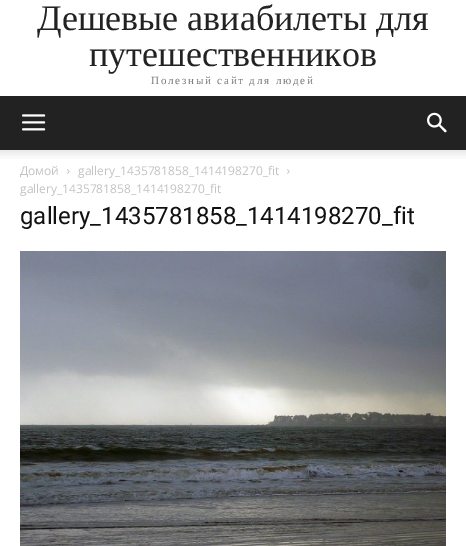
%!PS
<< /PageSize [466 546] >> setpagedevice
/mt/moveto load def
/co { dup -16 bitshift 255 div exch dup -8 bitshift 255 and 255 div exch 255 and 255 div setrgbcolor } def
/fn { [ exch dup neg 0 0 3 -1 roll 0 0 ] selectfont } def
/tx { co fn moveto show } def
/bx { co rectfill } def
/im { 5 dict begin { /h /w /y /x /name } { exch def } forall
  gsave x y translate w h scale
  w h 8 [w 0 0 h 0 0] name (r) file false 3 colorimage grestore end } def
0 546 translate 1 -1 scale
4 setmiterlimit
0 0 466 546 16#FFFFFF bx
0 96 466 54 16#222222 bx
(media/1.raw) 22 114 24 17 im
(media/2.raw) 427 112 20 21 im
(media/3.raw) 0 150 466 9 im
(media/4.raw) 67 169 3 5 im
(media/4.raw) 287 169 3 5 im
(media/5.raw) 20 251 426 295 im
(Дешевые авиабилеты для) 37 30 /LiberationSerif-Regular 36 16#222222 tx
(путешественников) 89 66 /LiberationSerif-Regular 36 16#222222 tx
/LiberationSerif-Regular 11 fn
16#777777 co
151 84 mt 1.8 0 (Полезный сайт для людей) ashow
(Домой) 20 175 /OpenSans-Regular 12 16#C3C3C3 tx
(gallery_1435781858_1414198270_fit) 78 175 /OpenSans-Regular 12 16#C3C3C3 tx
(gallery_1435781858_1414198270_fit) 20 193 /OpenSans-Regular 12 16#C3C3C3 tx
(gallery_1435781858_1414198270_fit) 20 224 /Roboto-Regular 24 16#111111 tx
showpage
